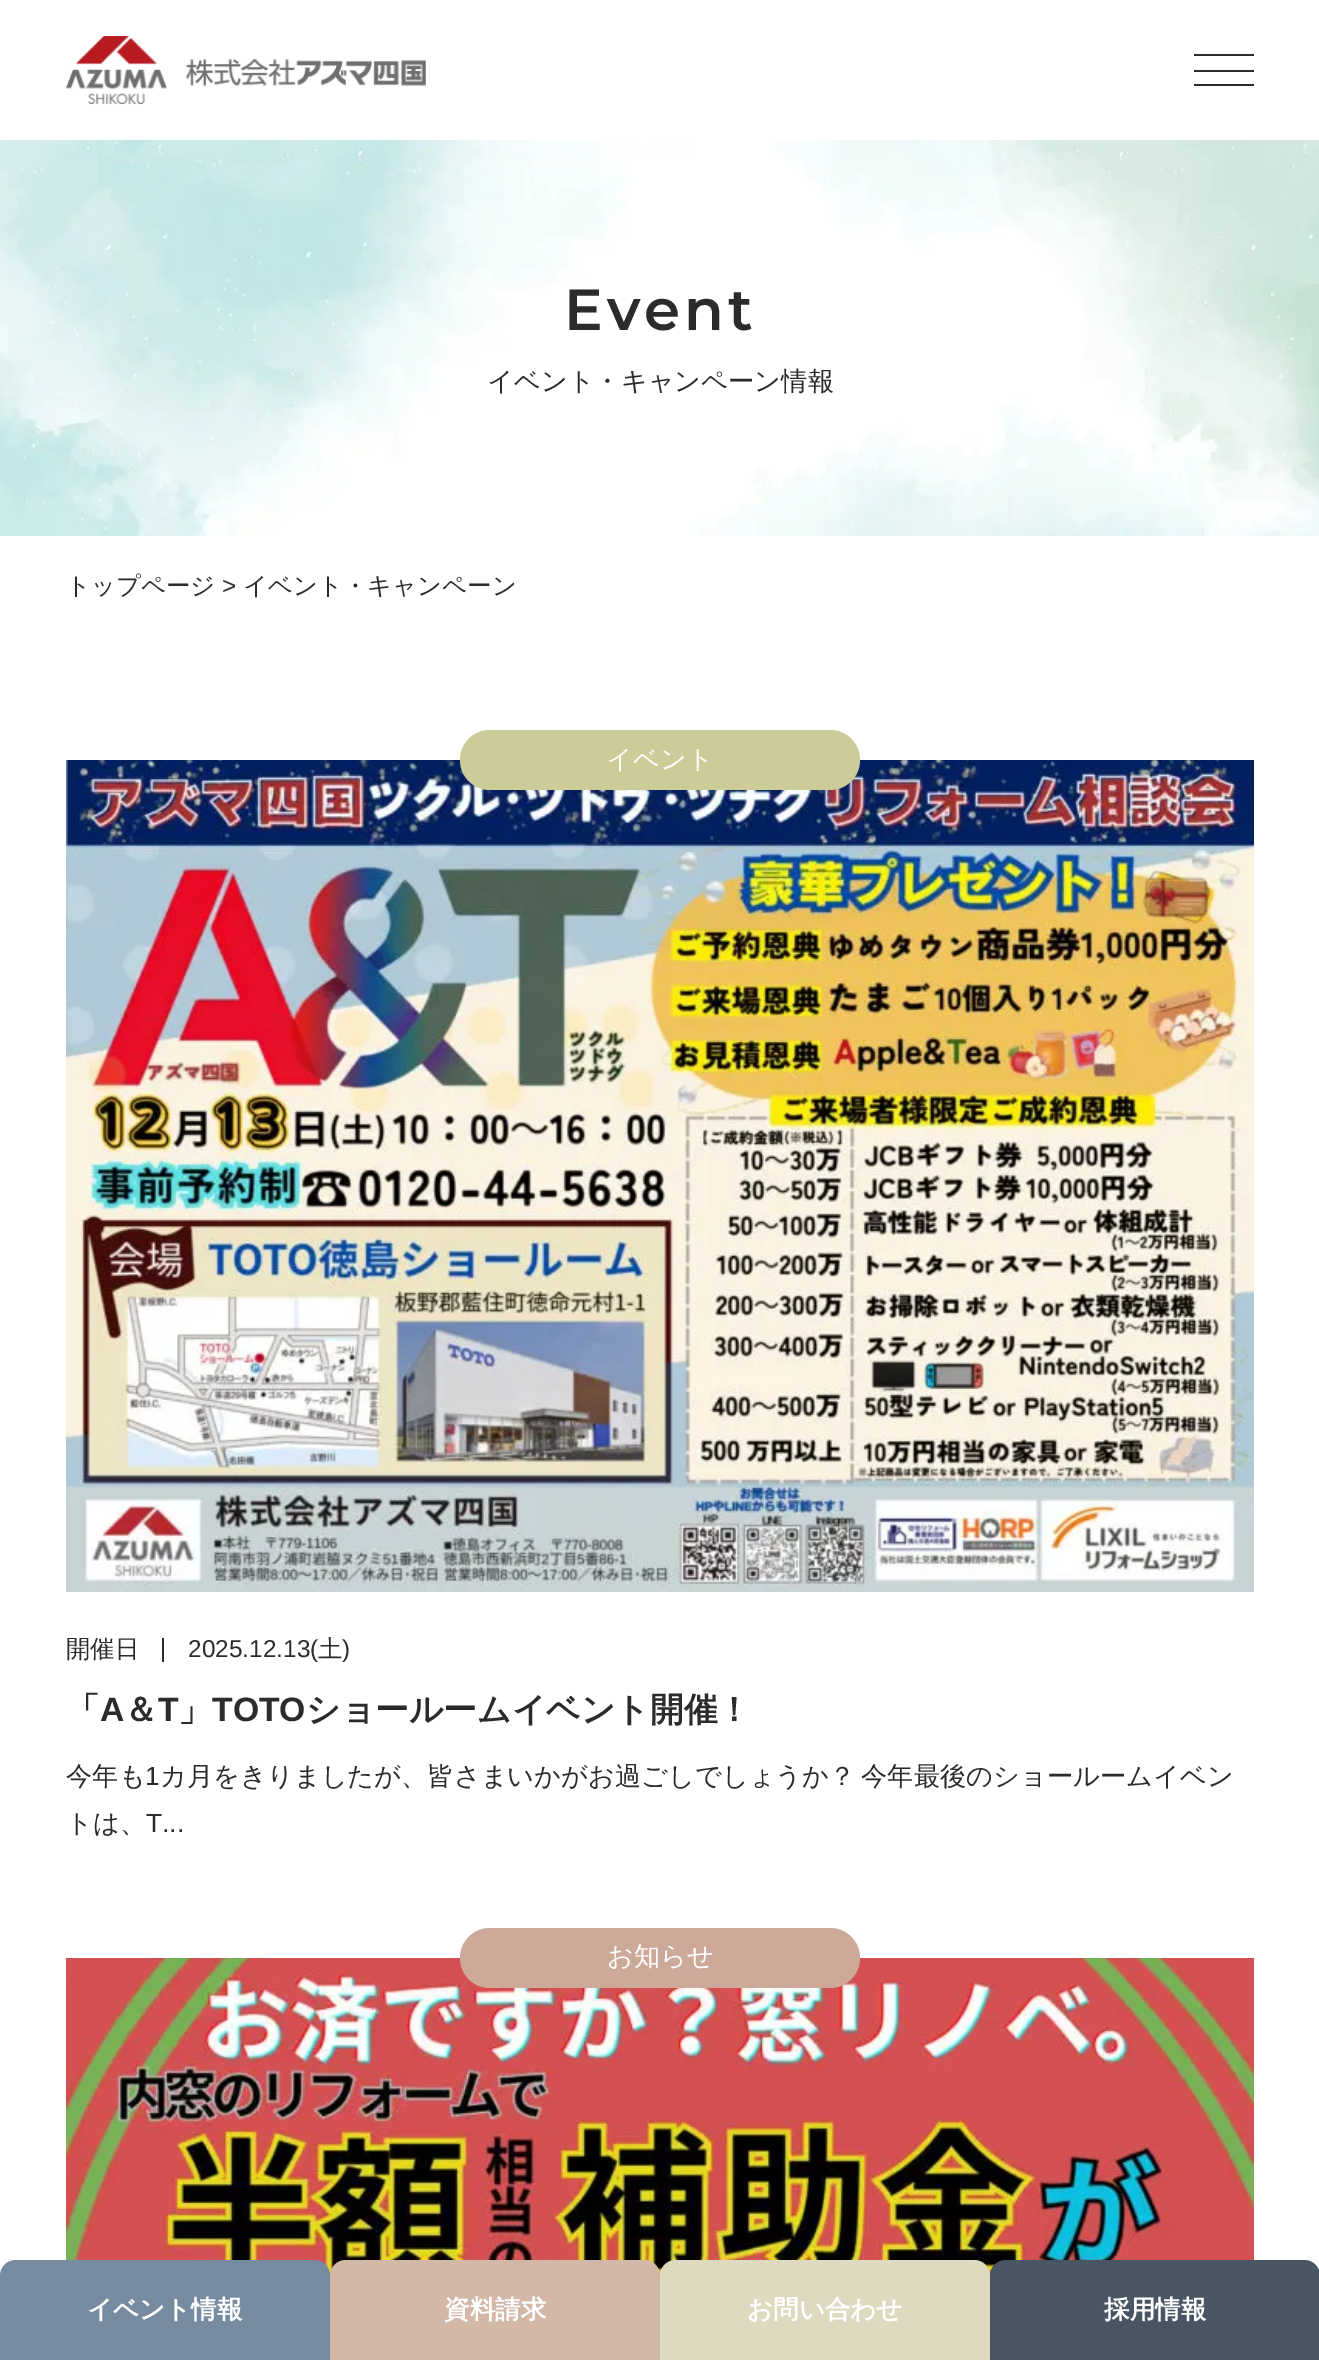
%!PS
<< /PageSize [1319 2360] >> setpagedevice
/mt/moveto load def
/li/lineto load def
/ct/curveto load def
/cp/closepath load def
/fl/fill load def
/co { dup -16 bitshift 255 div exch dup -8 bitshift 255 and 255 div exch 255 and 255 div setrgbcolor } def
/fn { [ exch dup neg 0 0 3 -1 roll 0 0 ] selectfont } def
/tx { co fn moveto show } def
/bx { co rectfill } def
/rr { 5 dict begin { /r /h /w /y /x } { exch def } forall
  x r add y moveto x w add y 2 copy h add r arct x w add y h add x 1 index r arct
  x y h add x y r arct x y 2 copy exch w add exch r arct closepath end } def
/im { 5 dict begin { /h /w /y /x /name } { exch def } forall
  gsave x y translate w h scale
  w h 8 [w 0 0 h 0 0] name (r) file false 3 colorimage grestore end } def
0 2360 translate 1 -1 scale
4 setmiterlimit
0 0 1319 2360 16#FFFFFF bx
(media/1.raw) 66 36 360 69 im
1194 54 60 2 16#2B2B2B bx
1194 70 60 2 16#2B2B2B bx
1194 84 60 2 16#2B2B2B bx
(media/2.raw) 0 140 1319 396 im
(media/3.raw) 66 760 1188 832 im
16#CCCC99 co
460 730 400 60 30 rr fl
162 1638 2 24 16#2B2B2B bx
(media/4.raw) 66 1958 1188 318 im
16#CCA999 co
460 1928 400 60 30 rr fl
16#778BA0 co
16 2260 mt 314 2260 li 323 2260 330 2267 330 2276 ct 330 2360 li 0 2360 li 0 2276 li 0 2267 7 2260 16 2260 ct cp fl
16#D3B7A7 co
346 2260 mt 644 2260 li 653 2260 660 2267 660 2276 ct 660 2360 li 330 2360 li 330 2276 li 330 2267 337 2260 346 2260 ct cp fl
16#DDDABF co
676 2260 mt 974 2260 li 983 2260 990 2267 990 2276 ct 990 2360 li 660 2360 li 660 2276 li 660 2267 667 2260 676 2260 ct cp fl
16#495562 co
1006 2260 mt 1304 2260 li 1313 2260 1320 2267 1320 2276 ct 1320 2360 li 990 2360 li 990 2276 li 990 2267 997 2260 1006 2260 ct cp fl
/Montserrat-SemiBold 58 fn
16#2B2B2B co
564 330 mt 4 0 (Event) ashow
(イベント・キャンペーン情報) 487 390 /WenQuanYiZenHei-Medium 26.25 16#2B2B2B tx
(トップページ) 66 594 /WenQuanYiZenHei-Medium 24.4 16#2B2B2B tx
(>) 222 594 /LiberationSans-Regular 24.4 16#2B2B2B tx
(イベント・キャンペーン) 243 594 /WenQuanYiZenHei-Medium 24.4 16#2B2B2B tx
(イベント) 606 768 /WenQuanYiZenHei-Medium 26.25 16#FFFFFF tx
(開催日) 66 1657 /WenQuanYiZenHei-Medium 24.4 16#2B2B2B tx
(2025.12.13\() 188 1657 /LiberationSans-Regular 24.4 16#2B2B2B tx
(土) 318 1657 /WenQuanYiZenHei-Medium 24.4 16#2B2B2B tx
(\)) 342 1657 /LiberationSans-Regular 24.4 16#2B2B2B tx
(「) 66 1721 /WenQuanYiZenHei-Bold 33.75 16#2B2B2B tx
(A) 100 1721 /LiberationSans-Bold 33.75 16#2B2B2B tx
(＆) 124 1721 /WenQuanYiZenHei-Bold 33.75 16#2B2B2B tx
(T) 158 1721 /LiberationSans-Bold 33.75 16#2B2B2B tx
(」) 178 1721 /WenQuanYiZenHei-Bold 33.75 16#2B2B2B tx
(TOTO) 212 1721 /LiberationSans-Bold 33.75 16#2B2B2B tx
(ショールームイベント開催！) 306 1721 /WenQuanYiZenHei-Bold 33.75 16#2B2B2B tx
(今年も) 66 1785 /WenQuanYiZenHei-Medium 26.25 16#2B2B2B tx
(1) 145 1785 /LiberationSans-Regular 26.25 16#2B2B2B tx
/WenQuanYiZenHei-Medium 26.25 fn
160 1785 mt -2 0 32 (カ月をきりましたが、皆さまいかがお過ごしでしょうか？ 今年最後のショールームイベン) widthshow
(トは、) 66 1832 /WenQuanYiZenHei-Medium 26.25 16#2B2B2B tx
(T...) 146 1832 /LiberationSans-Regular 26.25 16#2B2B2B tx
(お知らせ) 607 1965 /WenQuanYiZenHei-Medium 26.25 16#FFFFFF tx
(イベント情報) 87 2318 /WenQuanYiZenHei-Bold 25.5 16#FFFFFF tx
(資料請求) 444 2318 /WenQuanYiZenHei-Bold 25.5 16#FFFFFF tx
(お問い合わせ) 747 2318 /WenQuanYiZenHei-Bold 25.5 16#FFFFFF tx
(採用情報) 1104 2318 /WenQuanYiZenHei-Bold 25.5 16#FFFFFF tx
showpage
